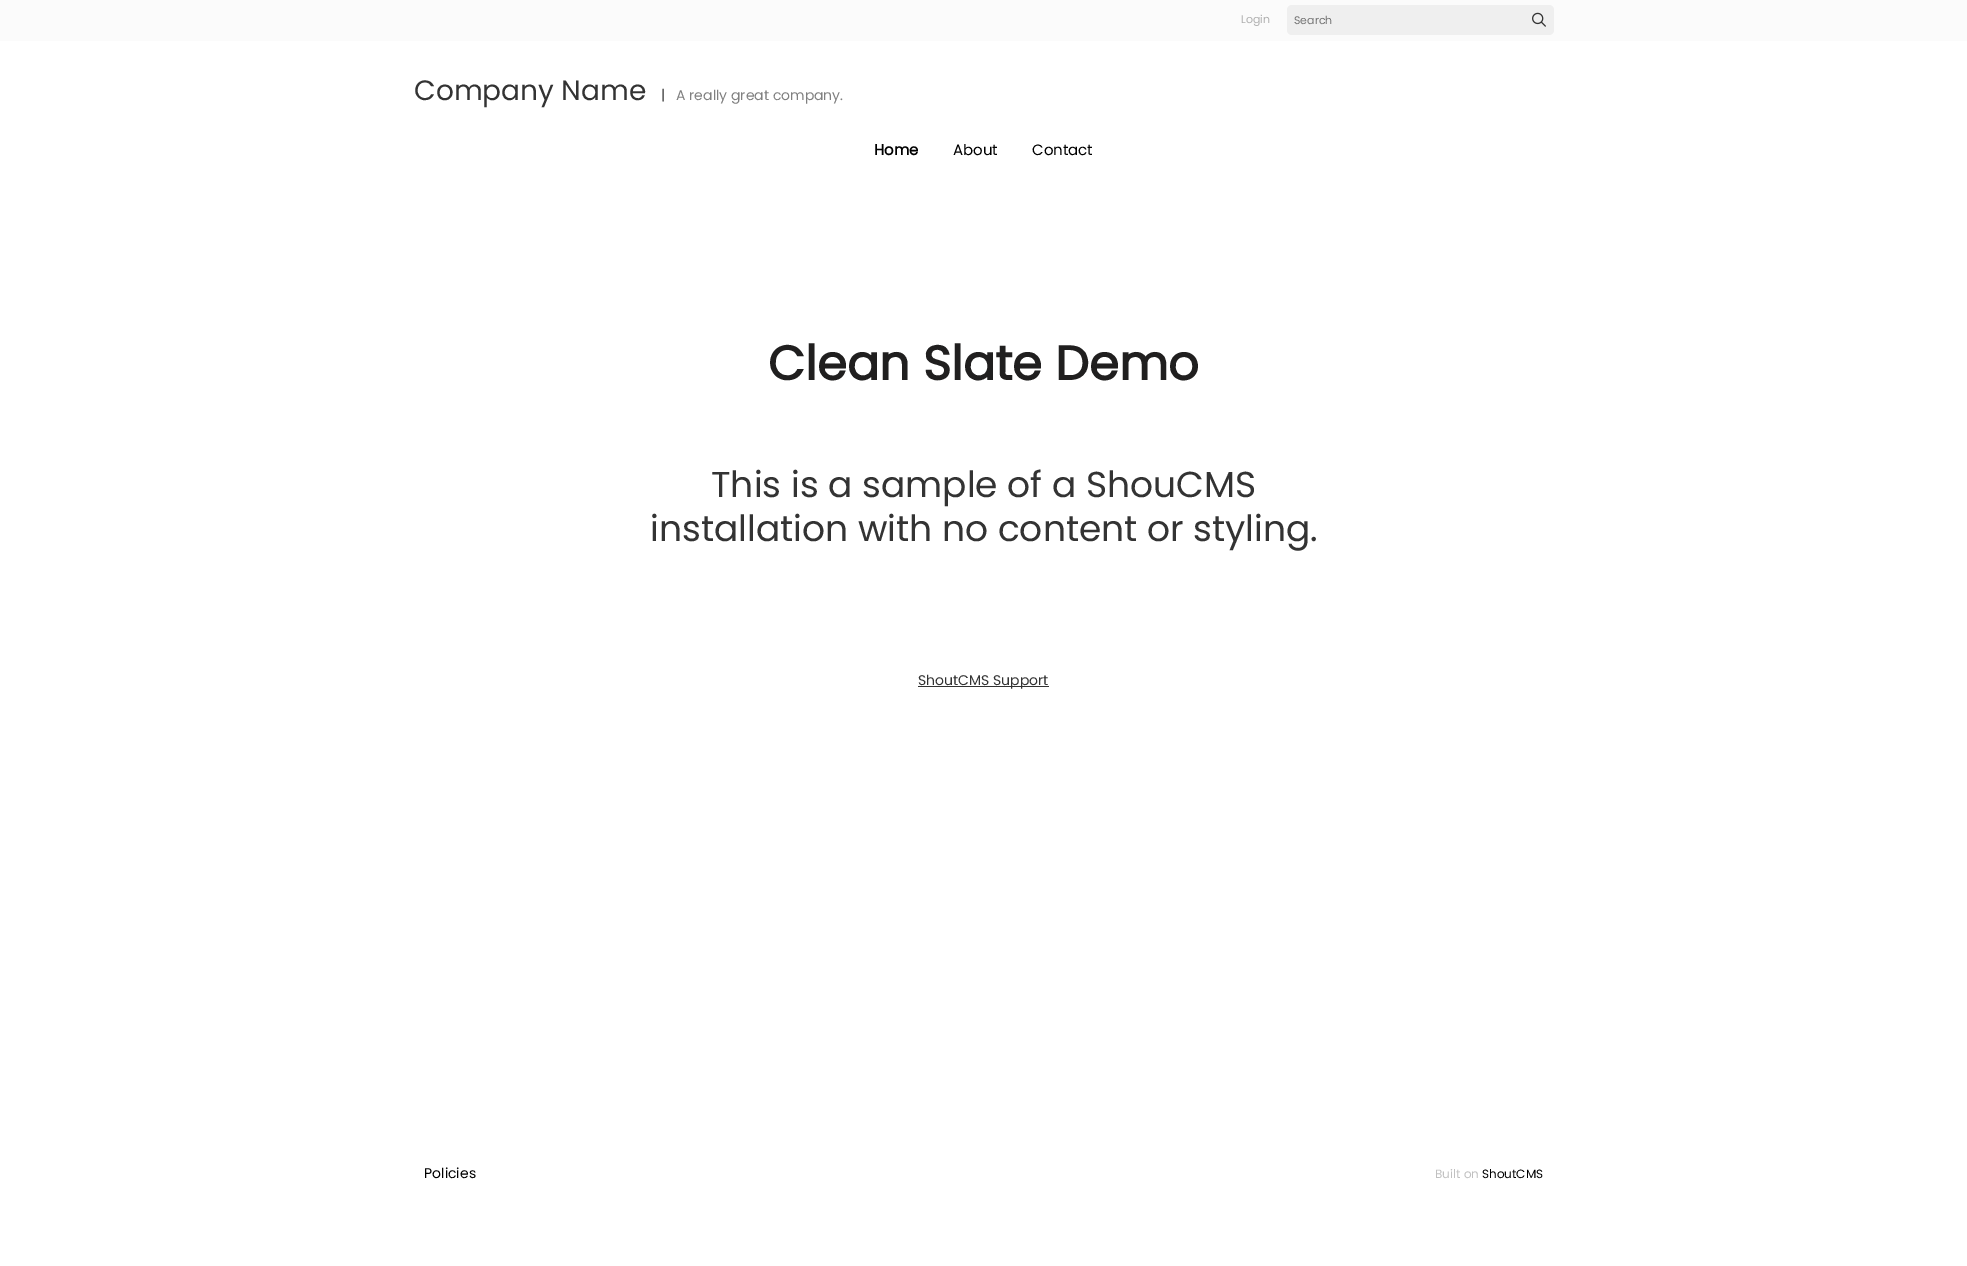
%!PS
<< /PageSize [1967 1266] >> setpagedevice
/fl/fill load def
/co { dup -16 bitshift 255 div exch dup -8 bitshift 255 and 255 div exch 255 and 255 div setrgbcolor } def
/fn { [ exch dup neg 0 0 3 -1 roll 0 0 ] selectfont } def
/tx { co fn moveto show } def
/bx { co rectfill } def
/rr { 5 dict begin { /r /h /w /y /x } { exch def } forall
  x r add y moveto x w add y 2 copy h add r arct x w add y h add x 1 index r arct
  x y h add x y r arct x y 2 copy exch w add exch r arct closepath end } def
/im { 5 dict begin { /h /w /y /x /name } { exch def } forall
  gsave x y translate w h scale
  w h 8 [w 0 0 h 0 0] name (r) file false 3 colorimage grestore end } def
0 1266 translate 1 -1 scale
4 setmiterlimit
0 0 1967 1266 16#FFFFFF bx
0 0 1967 41 16#FBFBFB bx
16#EFEFEF co
1287 5 267 30 5 rr fl
(media/1.raw) 1532 12 14 15 im
918 686 131 1 16#323232 bx
(Login) 1241 23 /Poppins-Regular 11 16#AFAFAF tx
(Search) 1294 24 /Poppins-Regular 11 16#757575 tx
(Company Name) 414 100 /Poppins-Regular 28 16#333333 tx
(|) 661 100 /Poppins-Regular 14 16#333333 tx
(A really great company.) 676 100 /Poppins-Regular 14 16#808080 tx
(Home) 874 155 /Poppins-Bold 15 16#000000 tx
(About) 953 155 /Poppins-Regular 15 16#000000 tx
(Contact) 1032 155 /Poppins-Regular 15 16#000000 tx
(Clean Slate Demo) 768 380 /Poppins-Bold 48 16#201F1F tx
(This is a sample of a ShouCMS) 711 497 /Poppins-Regular 36 16#333333 tx
(installation with no content or styling.) 650 541 /Poppins-Regular 36 16#333333 tx
(ShoutCMS Support) 918 685 /Poppins-Regular 14 16#333333 tx
(Policies) 424 1178 /Poppins-Regular 14 16#000000 tx
(Built on) 1435 1178 /Poppins-Regular 12 16#C0C0C0 tx
(ShoutCMS) 1482 1178 /Poppins-Regular 12 16#000000 tx
showpage
